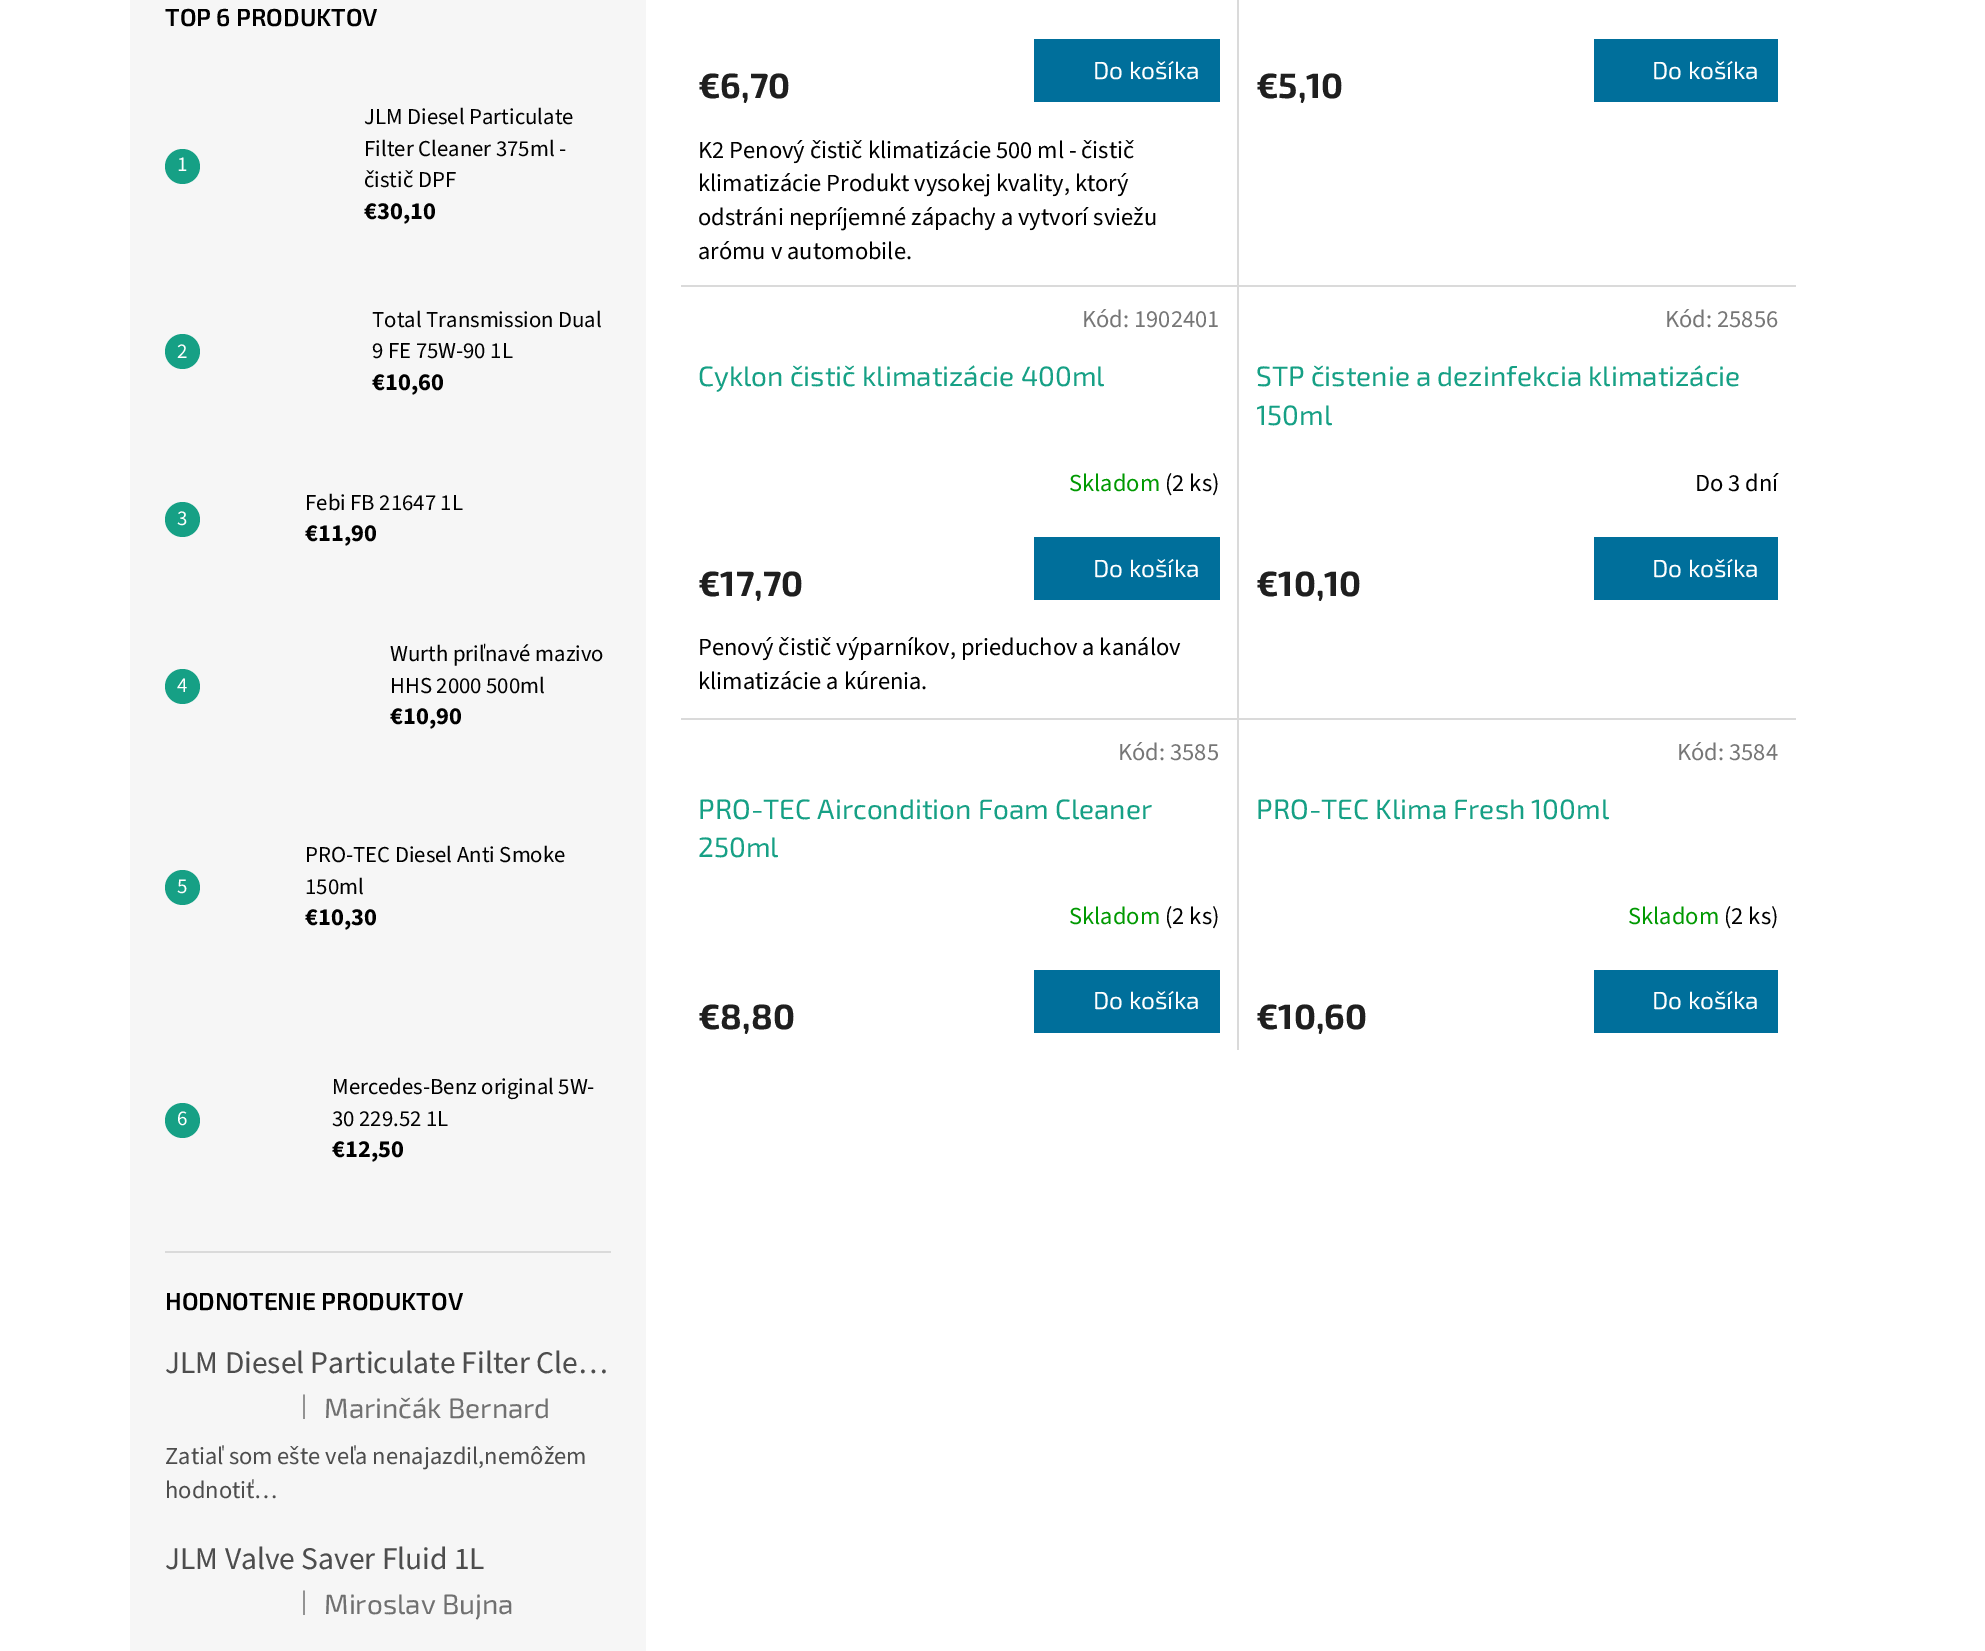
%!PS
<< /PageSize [1985 1651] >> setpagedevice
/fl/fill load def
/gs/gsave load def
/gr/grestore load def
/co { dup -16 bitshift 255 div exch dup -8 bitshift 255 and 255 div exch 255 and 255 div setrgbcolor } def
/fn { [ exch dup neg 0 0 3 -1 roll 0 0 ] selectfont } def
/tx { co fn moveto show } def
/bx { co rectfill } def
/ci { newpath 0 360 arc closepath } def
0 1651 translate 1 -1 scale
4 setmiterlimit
0 0 1985 1651 16#FFFFFF bx
130 0 516 1651 16#F6F6F6 bx
165 1251 446 2 16#DADADA bx
16#16A085 co
182.5 166.5 17.5 ci fl
182.5 351.5 17.5 ci fl
182.5 519.5 17.5 ci fl
182.5 686.5 17.5 ci fl
182.5 887.5 17.5 ci fl
182.5 1120.5 17.5 ci fl
1237 0 2 285 16#DADADA bx
1034 39 186 63 16#006F9B bx
1594 39 184 63 16#006F9B bx
681 285 1115 2 16#DADADA bx
1237 285 2 433 16#DADADA bx
1034 537 186 63 16#006F9B bx
1594 537 184 63 16#006F9B bx
681 718 1115 2 16#DADADA bx
1237 718 2 332 16#DADADA bx
1034 970 186 63 16#006F9B bx
1594 970 184 63 16#006F9B bx
(TOP 6 PRODUKTOV) 165 26 /Exo2-SemiBold 24.5 16#000000 tx
(1) 177 171 /SourceSans3-Regular 21 16#FFFFFF tx
(JLM Diesel Particulate) 364 124 /SourceSans3-Regular 22.75 16#000000 tx
(Filter Cleaner 375ml -) 364 156 /SourceSans3-Regular 22.75 16#000000 tx
(čistič DPF) 364 187 /SourceSans3-Regular 22.75 16#000000 tx
(€30,10) 364 219 /SourceSans3-Bold 24.5 16#000000 tx
(2) 177 358 /SourceSans3-Regular 21 16#FFFFFF tx
(Total Transmission Dual) 372 327 /SourceSans3-Regular 22.75 16#000000 tx
(9 FE 75W-90 1L) 372 358 /SourceSans3-Regular 22.75 16#000000 tx
(€10,60) 372 390 /SourceSans3-Bold 24.5 16#000000 tx
(3) 177 525 /SourceSans3-Regular 21 16#FFFFFF tx
(Febi FB 21647 1L) 305 510 /SourceSans3-Regular 22.75 16#000000 tx
(€11,90) 305 541 /SourceSans3-Bold 24.5 16#000000 tx
(4) 177 692 /SourceSans3-Regular 21 16#FFFFFF tx
(Wurth priľnavé mazivo) 390 661 /SourceSans3-Regular 22.75 16#000000 tx
(HHS 2000 500ml) 390 693 /SourceSans3-Regular 22.75 16#000000 tx
(€10,90) 390 724 /SourceSans3-Bold 24.5 16#000000 tx
(5) 177 893 /SourceSans3-Regular 21 16#FFFFFF tx
(PRO-TEC Diesel Anti Smoke) 305 862 /SourceSans3-Regular 22.75 16#000000 tx
(150ml) 305 894 /SourceSans3-Regular 22.75 16#000000 tx
(€10,30) 305 925 /SourceSans3-Bold 24.5 16#000000 tx
(6) 177 1125 /SourceSans3-Regular 21 16#FFFFFF tx
(Mercedes-Benz original 5W-) 332 1094 /SourceSans3-Regular 22.75 16#000000 tx
(30 229.52 1L) 332 1126 /SourceSans3-Regular 22.75 16#000000 tx
(€12,50) 332 1157 /SourceSans3-Bold 24.5 16#000000 tx
(HODNOTENIE PRODUKTOV) 165 1310 /Exo2-SemiBold 24.5 16#000000 tx
(JLM Diesel Particulate Filter Cle…) 165 1373 /SourceSans3-Regular 31.5 16#4D4D4D tx
(|) 301 1413 /SourceSans3-Regular 24.5 16#707070 tx
(Marinčák Bernard) 324 1418 /Exo2-Regular 28 16#707070 tx
(Zatiaľ som ešte veľa nenajazdil,nemôžem) 165 1464 /SourceSans3-Regular 24.5 16#4D4D4D tx
(hodnotiť…) 165 1498 /SourceSans3-Regular 24.5 16#4D4D4D tx
(JLM Valve Saver Fluid 1L) 165 1569 /SourceSans3-Regular 31.5 16#4D4D4D tx
(|) 301 1609 /SourceSans3-Regular 24.5 16#707070 tx
(Miroslav Bujna) 324 1614 /Exo2-Regular 28 16#707070 tx
(Do košíka) 1093 79 /Exo2-Regular 24.5 16#FFFFFF tx
(€6,70) 698 98 /Exo2-Bold 35 16#1F1F1F tx
(K2 Penový čistič klimatizácie 500 ml - čistič) 698 158 /SourceSans3-Regular 24.5 16#000000 tx
(klimatizácie Produkt vysokej kvality, ktorý) 698 191 /SourceSans3-Regular 24.5 16#000000 tx
(odstráni nepríjemné zápachy a vytvorí sviežu) 698 225 /SourceSans3-Regular 24.5 16#000000 tx
(arómu v automobile.) 698 259 /SourceSans3-Regular 24.5 16#000000 tx
(Do košíka) 1652 79 /Exo2-Regular 24.5 16#FFFFFF tx
(€5,10) 1256 98 /Exo2-Bold 35 16#1F1F1F tx
(Kód: 1902401) 1082 327 /SourceSans3-Regular 24.5 16#767676 tx
(Cyklon čistič klimatizácie 400ml) 698 386 /Exo2-Regular 28 16#16A085 tx
(Skladom) 1069 491 /SourceSans3-Regular 24.5 16#009901 tx
(\(2 ks\)) 1165 491 /SourceSans3-Regular 24.5 16#000000 tx
(Do košíka) 1093 577 /Exo2-Regular 24.5 16#FFFFFF tx
(€17,70) 698 596 /Exo2-Bold 35 16#1F1F1F tx
(Penový čistič výparníkov, prieduchov a kanálov) 698 655 /SourceSans3-Regular 24.5 16#000000 tx
(klimatizácie a kúrenia.) 698 689 /SourceSans3-Regular 24.5 16#000000 tx
(Kód: 25856) 1665 327 /SourceSans3-Regular 24.5 16#767676 tx
(STP čistenie a dezinfekcia klimatizácie) 1256 386 /Exo2-Regular 28 16#16A085 tx
gs
1257 357 521 79 rectclip
(150ml) 1256 425 /Exo2-Regular 28 16#16A085 tx
gr
(Do 3 dní) 1695 491 /SourceSans3-Regular 24.5 16#000000 tx
(Do košíka) 1652 577 /Exo2-Regular 24.5 16#FFFFFF tx
(€10,10) 1256 596 /Exo2-Bold 35 16#1F1F1F tx
(Kód: 3585) 1118 760 /SourceSans3-Regular 24.5 16#767676 tx
(PRO-TEC Aircondition Foam Cleaner) 698 819 /Exo2-Regular 28 16#16A085 tx
(250ml) 698 857 /Exo2-Regular 28 16#16A085 tx
(Skladom) 1069 924 /SourceSans3-Regular 24.5 16#009901 tx
(\(2 ks\)) 1165 924 /SourceSans3-Regular 24.5 16#000000 tx
(Do košíka) 1093 1009 /Exo2-Regular 24.5 16#FFFFFF tx
(€8,80) 698 1029 /Exo2-Bold 35 16#1F1F1F tx
(Kód: 3584) 1677 760 /SourceSans3-Regular 24.5 16#767676 tx
(PRO-TEC Klima Fresh 100ml) 1256 819 /Exo2-Regular 28 16#16A085 tx
(Skladom) 1628 924 /SourceSans3-Regular 24.5 16#009901 tx
(\(2 ks\)) 1724 924 /SourceSans3-Regular 24.5 16#000000 tx
(Do košíka) 1652 1009 /Exo2-Regular 24.5 16#FFFFFF tx
(€10,60) 1256 1029 /Exo2-Bold 35 16#1F1F1F tx
showpage
